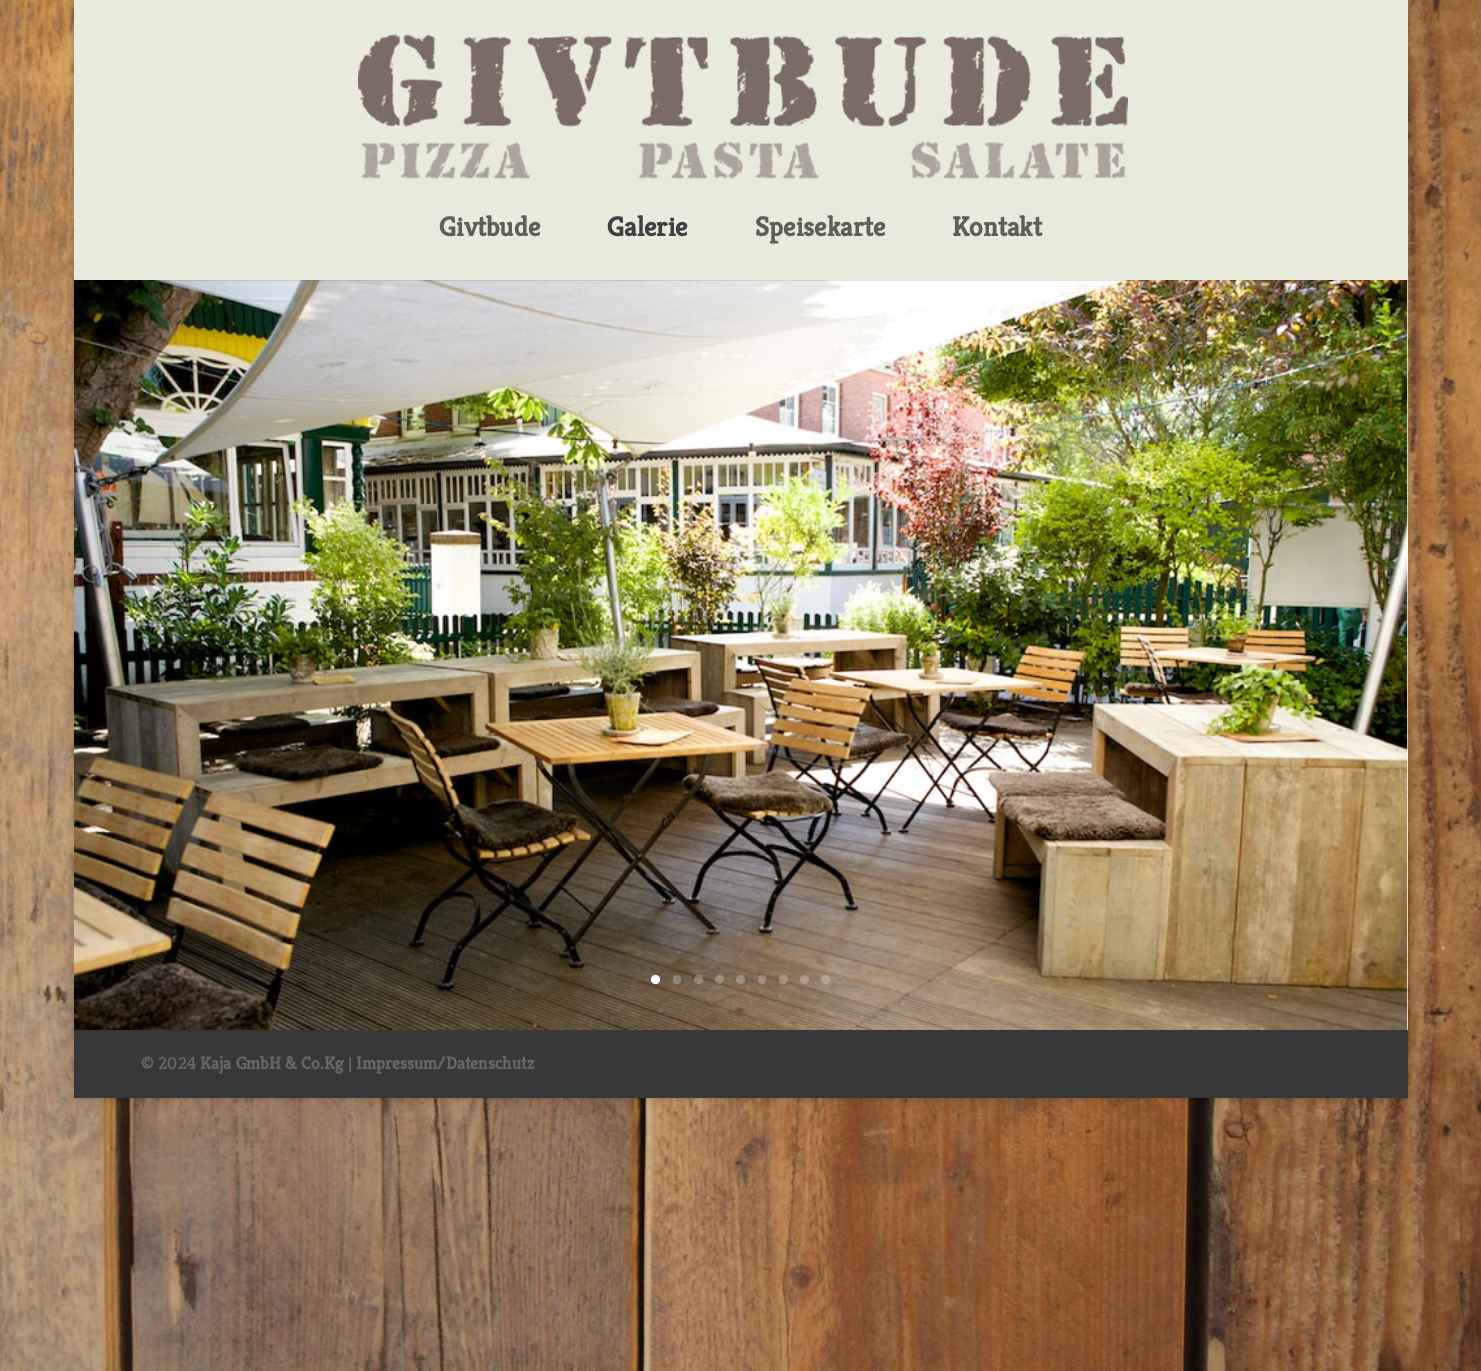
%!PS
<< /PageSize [1481 1371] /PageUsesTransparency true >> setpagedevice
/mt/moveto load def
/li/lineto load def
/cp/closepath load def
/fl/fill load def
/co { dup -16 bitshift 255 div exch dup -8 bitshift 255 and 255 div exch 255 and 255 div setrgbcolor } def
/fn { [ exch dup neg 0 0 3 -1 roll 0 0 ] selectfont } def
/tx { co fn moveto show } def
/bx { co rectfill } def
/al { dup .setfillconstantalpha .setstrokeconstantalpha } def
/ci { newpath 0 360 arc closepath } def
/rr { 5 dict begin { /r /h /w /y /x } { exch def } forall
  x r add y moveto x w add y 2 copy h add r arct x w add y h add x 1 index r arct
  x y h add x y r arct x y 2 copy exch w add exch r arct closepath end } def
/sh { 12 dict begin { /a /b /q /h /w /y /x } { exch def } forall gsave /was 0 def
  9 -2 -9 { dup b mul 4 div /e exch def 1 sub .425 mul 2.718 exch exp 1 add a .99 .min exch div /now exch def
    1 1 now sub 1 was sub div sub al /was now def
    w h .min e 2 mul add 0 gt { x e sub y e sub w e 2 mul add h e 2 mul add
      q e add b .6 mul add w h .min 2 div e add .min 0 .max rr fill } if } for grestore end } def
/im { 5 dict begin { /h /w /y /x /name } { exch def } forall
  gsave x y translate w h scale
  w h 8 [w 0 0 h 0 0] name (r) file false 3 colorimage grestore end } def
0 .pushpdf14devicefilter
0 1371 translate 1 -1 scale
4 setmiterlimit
0 0 1481 1371 16#FFFFFF bx
(media/1.raw) 0 0 1481 1371 im
16#000000 co
74 0 1334 1098 0 6 .2 sh
1407 280 1 750 16#FFFFFF bx
(media/3.raw) 73 280 1335 750 im
0.1 al
16#000000 co
74 280 mt 74 281 li 1408 281 li 1408 1 li 1408 280 li cp fl
1 al
74 0 1334 280 16#E8EADC bx
(media/2.raw) 358 34 770 145 im
16#FFFFFF co
655.5 979.5 4.5 ci fl
0.25 al
673 975 8 9 4 rr fl
698.5 979.5 4.5 ci fl
719.5 979.5 4.5 ci fl
740.5 979.5 4.5 ci fl
758 975 8 9 4 rr fl
783.5 979.5 4.5 ci fl
804.5 979.5 4.5 ci fl
825.5 979.5 4.5 ci fl
1 al
74 1030 1334 68 16#373737 bx
(Givtbude) 439 236 /Kreon-Bold 27.5 16#5D5E58 tx
(Galerie) 607 236 /Kreon-Bold 27.5 16#3F3F3F tx
(Speisekarte) 755 236 /Kreon-Bold 27.5 16#5D5E58 tx
(Kontakt) 952 236 /Kreon-Bold 27.5 16#5D5E58 tx
(© 2024) 141 1069 /Kreon-Light 17.5 16#666666 tx
(Kaja GmbH & Co.Kg) 200 1069 /Kreon-Bold 17.5 16#666666 tx
(|) 348 1069 /Kreon-Light 17.5 16#666666 tx
(Impressum/Datenschutz) 356 1069 /Kreon-Bold 17.5 16#666666 tx
.poppdf14devicefilter showpage
